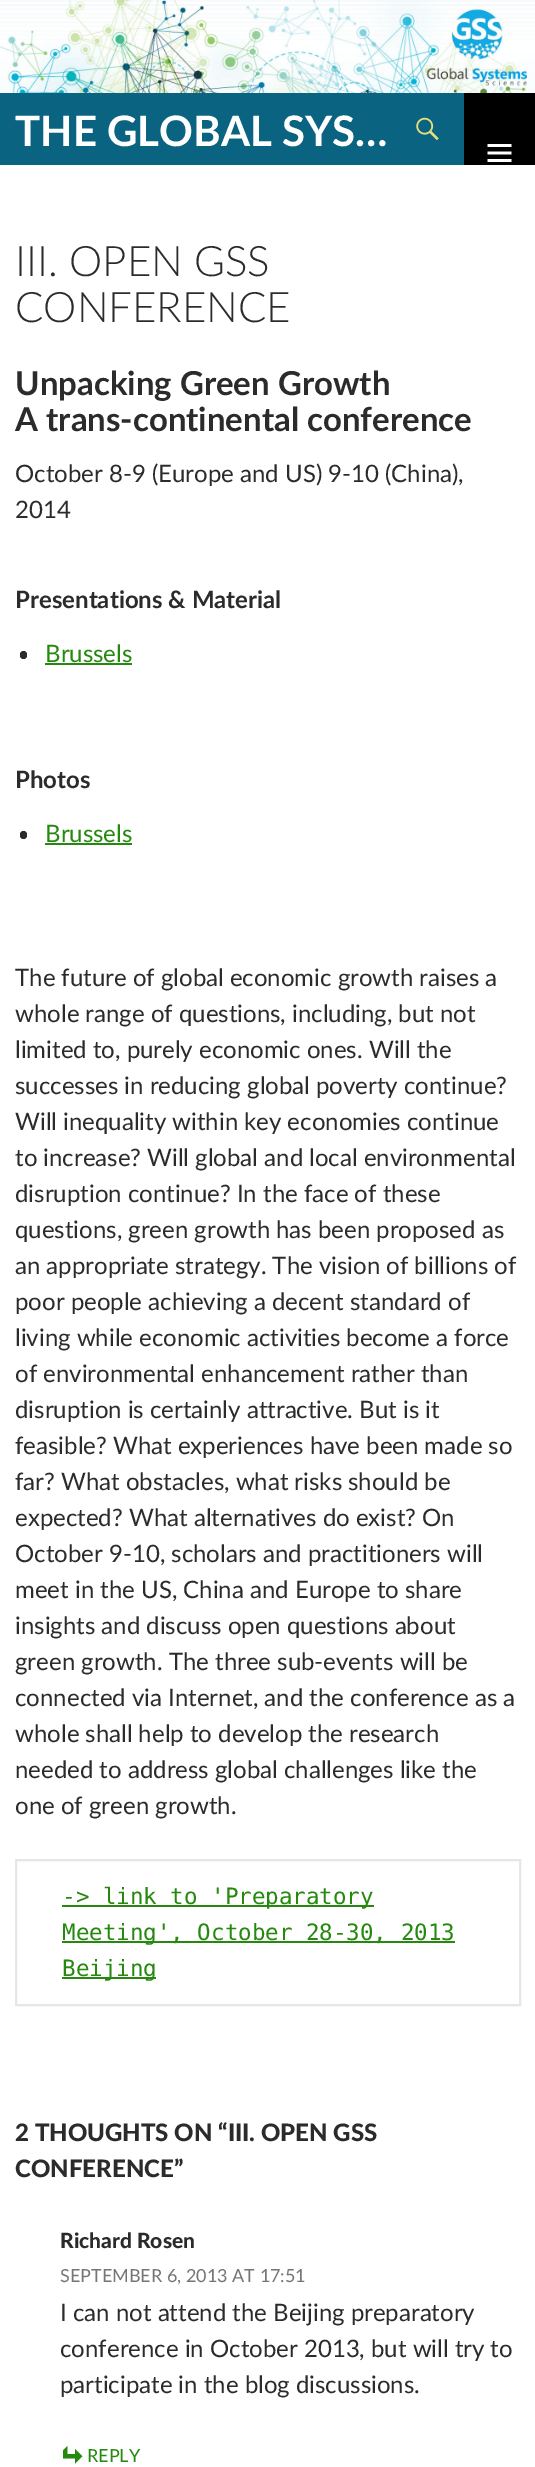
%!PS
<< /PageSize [535 2467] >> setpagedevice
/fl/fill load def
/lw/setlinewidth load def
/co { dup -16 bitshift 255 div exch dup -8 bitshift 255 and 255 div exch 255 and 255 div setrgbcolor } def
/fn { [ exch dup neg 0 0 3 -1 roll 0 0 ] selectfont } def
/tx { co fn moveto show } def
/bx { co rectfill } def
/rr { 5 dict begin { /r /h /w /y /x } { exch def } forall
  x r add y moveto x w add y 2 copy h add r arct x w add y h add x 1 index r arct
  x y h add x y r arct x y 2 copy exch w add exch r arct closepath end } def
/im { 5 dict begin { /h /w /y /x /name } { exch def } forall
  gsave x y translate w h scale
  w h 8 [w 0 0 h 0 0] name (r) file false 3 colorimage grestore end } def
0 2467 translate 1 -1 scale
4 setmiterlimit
0 0 535 2467 16#FFFFFF bx
(media/1.raw) 0 0 535 93 im
0 93 464 72 16#096381 bx
(media/2.raw) 416 117 23 24 im
464 93 71 72 16#000000 bx
(media/3.raw) 487 144 25 18 im
16#2B2B2B co
20 651 7 8 3.5 rr fl
45 663 87 2 16#24890D bx
16#2B2B2B co
20 831 7 8 3.5 rr fl
45 843 87 2 16#24890D bx
16#E6E6E6 co
2 lw
16 1860 504 145 rectstroke
62 1905 312 2 16#24890D bx
62 1941 393 2 16#24890D bx
62 1977 94 2 16#24890D bx
(media/4.raw) 63 2445 20 19 im
(THE GLOBAL SYS…) 15 146 /Lato-Bold 42 16#FFFFFF tx
(III. OPEN GSS) 15 276 /Lato-Light 42 16#2B2B2B tx
(CONFERENCE) 15 322 /Lato-Light 42 16#2B2B2B tx
(Unpacking Green Growth) 15 395 /Lato-Bold 33 16#2B2B2B tx
(A trans-continental conference) 15 431 /Lato-Bold 33 16#2B2B2B tx
(October 8-9 \(Europe and US\) 9-10 \(China\),) 15 482 /Lato-Regular 24 16#2B2B2B tx
(2014) 15 518 /Lato-Regular 24 16#2B2B2B tx
(Presentations & Material) 15 608 /Lato-Bold 24 16#2B2B2B tx
(Brussels) 45 662 /Lato-Regular 24 16#24890D tx
(Photos) 15 788 /Lato-Bold 24 16#2B2B2B tx
(Brussels) 45 842 /Lato-Regular 24 16#24890D tx
(The future of global economic growth raises a) 15 986 /Lato-Regular 24 16#2B2B2B tx
(whole range of questions, including, but not) 15 1022 /Lato-Regular 24 16#2B2B2B tx
(limited to, purely economic ones. Will the) 15 1058 /Lato-Regular 24 16#2B2B2B tx
(successes in reducing global poverty continue?) 15 1094 /Lato-Regular 24 16#2B2B2B tx
(Will inequality within key economies continue) 15 1130 /Lato-Regular 24 16#2B2B2B tx
(to increase? Will global and local environmental) 15 1166 /Lato-Regular 24 16#2B2B2B tx
(disruption continue? In the face of these) 15 1202 /Lato-Regular 24 16#2B2B2B tx
(questions, green growth has been proposed as) 15 1238 /Lato-Regular 24 16#2B2B2B tx
(an appropriate strategy. The vision of billions of) 15 1274 /Lato-Regular 24 16#2B2B2B tx
(poor people achieving a decent standard of) 15 1310 /Lato-Regular 24 16#2B2B2B tx
(living while economic activities become a force) 15 1346 /Lato-Regular 24 16#2B2B2B tx
(of environmental enhancement rather than) 15 1382 /Lato-Regular 24 16#2B2B2B tx
(disruption is certainly attractive. But is it) 15 1418 /Lato-Regular 24 16#2B2B2B tx
(feasible? What experiences have been made so) 15 1454 /Lato-Regular 24 16#2B2B2B tx
(far? What obstacles, what risks should be) 15 1490 /Lato-Regular 24 16#2B2B2B tx
(expected? What alternatives do exist? On) 15 1526 /Lato-Regular 24 16#2B2B2B tx
(October 9-10, scholars and practitioners will) 15 1562 /Lato-Regular 24 16#2B2B2B tx
(meet in the US, China and Europe to share) 15 1598 /Lato-Regular 24 16#2B2B2B tx
(insights and discuss open questions about) 15 1634 /Lato-Regular 24 16#2B2B2B tx
(green growth. The three sub-events will be) 15 1670 /Lato-Regular 24 16#2B2B2B tx
(connected via Internet, and the conference as a) 15 1706 /Lato-Regular 24 16#2B2B2B tx
(whole shall help to develop the research) 15 1742 /Lato-Regular 24 16#2B2B2B tx
(needed to address global challenges like the) 15 1778 /Lato-Regular 24 16#2B2B2B tx
(one of green growth.) 15 1814 /Lato-Regular 24 16#2B2B2B tx
(-> link to 'Preparatory) 62 1904 /DejaVuSansMono-Regular 22.5 16#24890D tx
(Meeting', October 28-30, 2013) 62 1940 /DejaVuSansMono-Regular 22.5 16#24890D tx
(Beijing) 62 1976 /DejaVuSansMono-Regular 22.5 16#24890D tx
(2 THOUGHTS ON “III. OPEN GSS) 15 2141 /Lato-Black 24 16#2B2B2B tx
(CONFERENCE”) 15 2177 /Lato-Black 24 16#2B2B2B tx
(Richard Rosen) 60 2248 /Lato-Black 21 16#2B2B2B tx
(SEPTEMBER 6, 2013 AT 17:51) 60 2282 /Lato-Regular 18 16#767676 tx
(I can not attend the Beijing preparatory) 60 2321 /Lato-Regular 24 16#2B2B2B tx
(conference in October 2013, but will try to) 60 2357 /Lato-Regular 24 16#2B2B2B tx
(participate in the blog discussions.) 60 2393 /Lato-Regular 24 16#2B2B2B tx
(REPLY) 87 2462 /Lato-Regular 18 16#24890D tx
showpage
